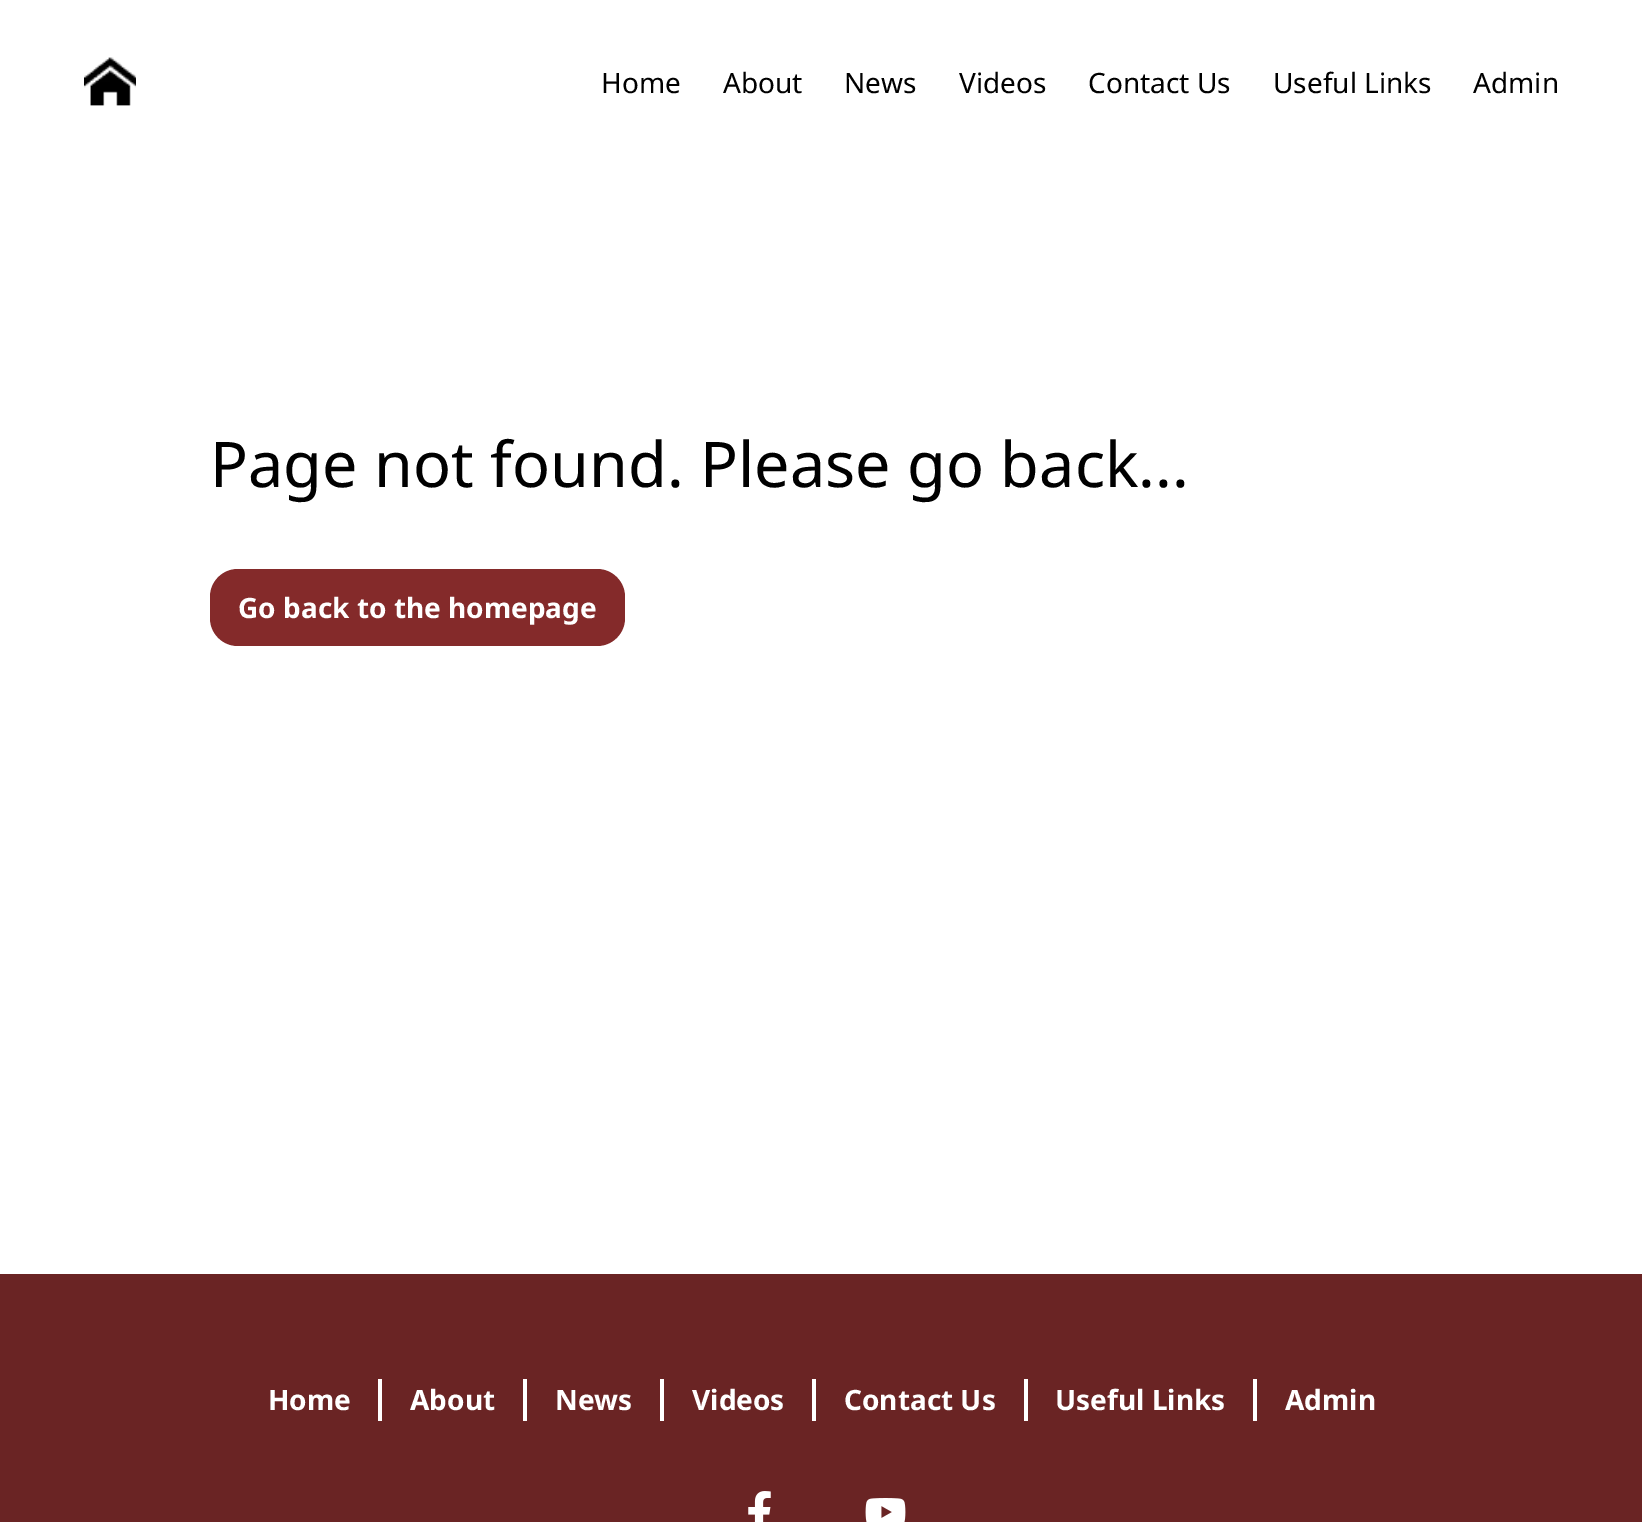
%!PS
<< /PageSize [1642 1522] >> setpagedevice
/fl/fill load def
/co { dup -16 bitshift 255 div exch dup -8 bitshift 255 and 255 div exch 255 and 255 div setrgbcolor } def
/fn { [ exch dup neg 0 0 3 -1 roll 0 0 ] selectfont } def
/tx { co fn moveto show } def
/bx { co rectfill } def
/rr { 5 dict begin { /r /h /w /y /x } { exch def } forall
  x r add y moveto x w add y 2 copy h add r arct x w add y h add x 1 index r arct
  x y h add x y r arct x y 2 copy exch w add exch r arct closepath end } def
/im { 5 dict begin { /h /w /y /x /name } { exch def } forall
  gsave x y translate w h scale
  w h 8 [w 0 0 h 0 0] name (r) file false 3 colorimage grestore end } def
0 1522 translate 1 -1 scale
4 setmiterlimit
0 0 1642 1522 16#FFFFFF bx
(media/1.raw) 84 57 52 49 im
16#842A2A co
210 569 415 77 28 rr fl
0 1274 1642 248 16#6A2424 bx
378 1379 4 42 16#FFFFFF bx
523 1379 4 42 16#FFFFFF bx
660 1379 4 42 16#FFFFFF bx
812 1379 4 42 16#FFFFFF bx
1024 1379 4 42 16#FFFFFF bx
1253 1379 4 42 16#FFFFFF bx
(media/2.raw) 748 1491 23 31 im
(media/3.raw) 865 1498 41 24 im
(Home) 601 93 /NotoSans-Regular 28 16#000000 tx
(About) 723 93 /NotoSans-Regular 28 16#000000 tx
(News) 844 93 /NotoSans-Regular 28 16#000000 tx
(Videos) 959 93 /NotoSans-Regular 28 16#000000 tx
(Contact Us) 1088 93 /NotoSans-Regular 28 16#000000 tx
(Useful Links) 1273 93 /NotoSans-Regular 28 16#000000 tx
(Admin) 1473 93 /NotoSans-Regular 28 16#000000 tx
(Page not found. Please go back...) 210 487 /NotoSans-Regular 63 16#000000 tx
(Go back to the homepage) 238 618 /NotoSans-Bold 28 16#FFFFFF tx
(Home) 268 1410 /NotoSans-Bold 28 16#FFFFFF tx
(About) 410 1410 /NotoSans-Bold 28 16#FFFFFF tx
(News) 555 1410 /NotoSans-Bold 28 16#FFFFFF tx
(Videos) 692 1410 /NotoSans-Bold 28 16#FFFFFF tx
(Contact Us) 844 1410 /NotoSans-Bold 28 16#FFFFFF tx
(Useful Links) 1055 1410 /NotoSans-Bold 28 16#FFFFFF tx
(Admin) 1285 1410 /NotoSans-Bold 28 16#FFFFFF tx
showpage
